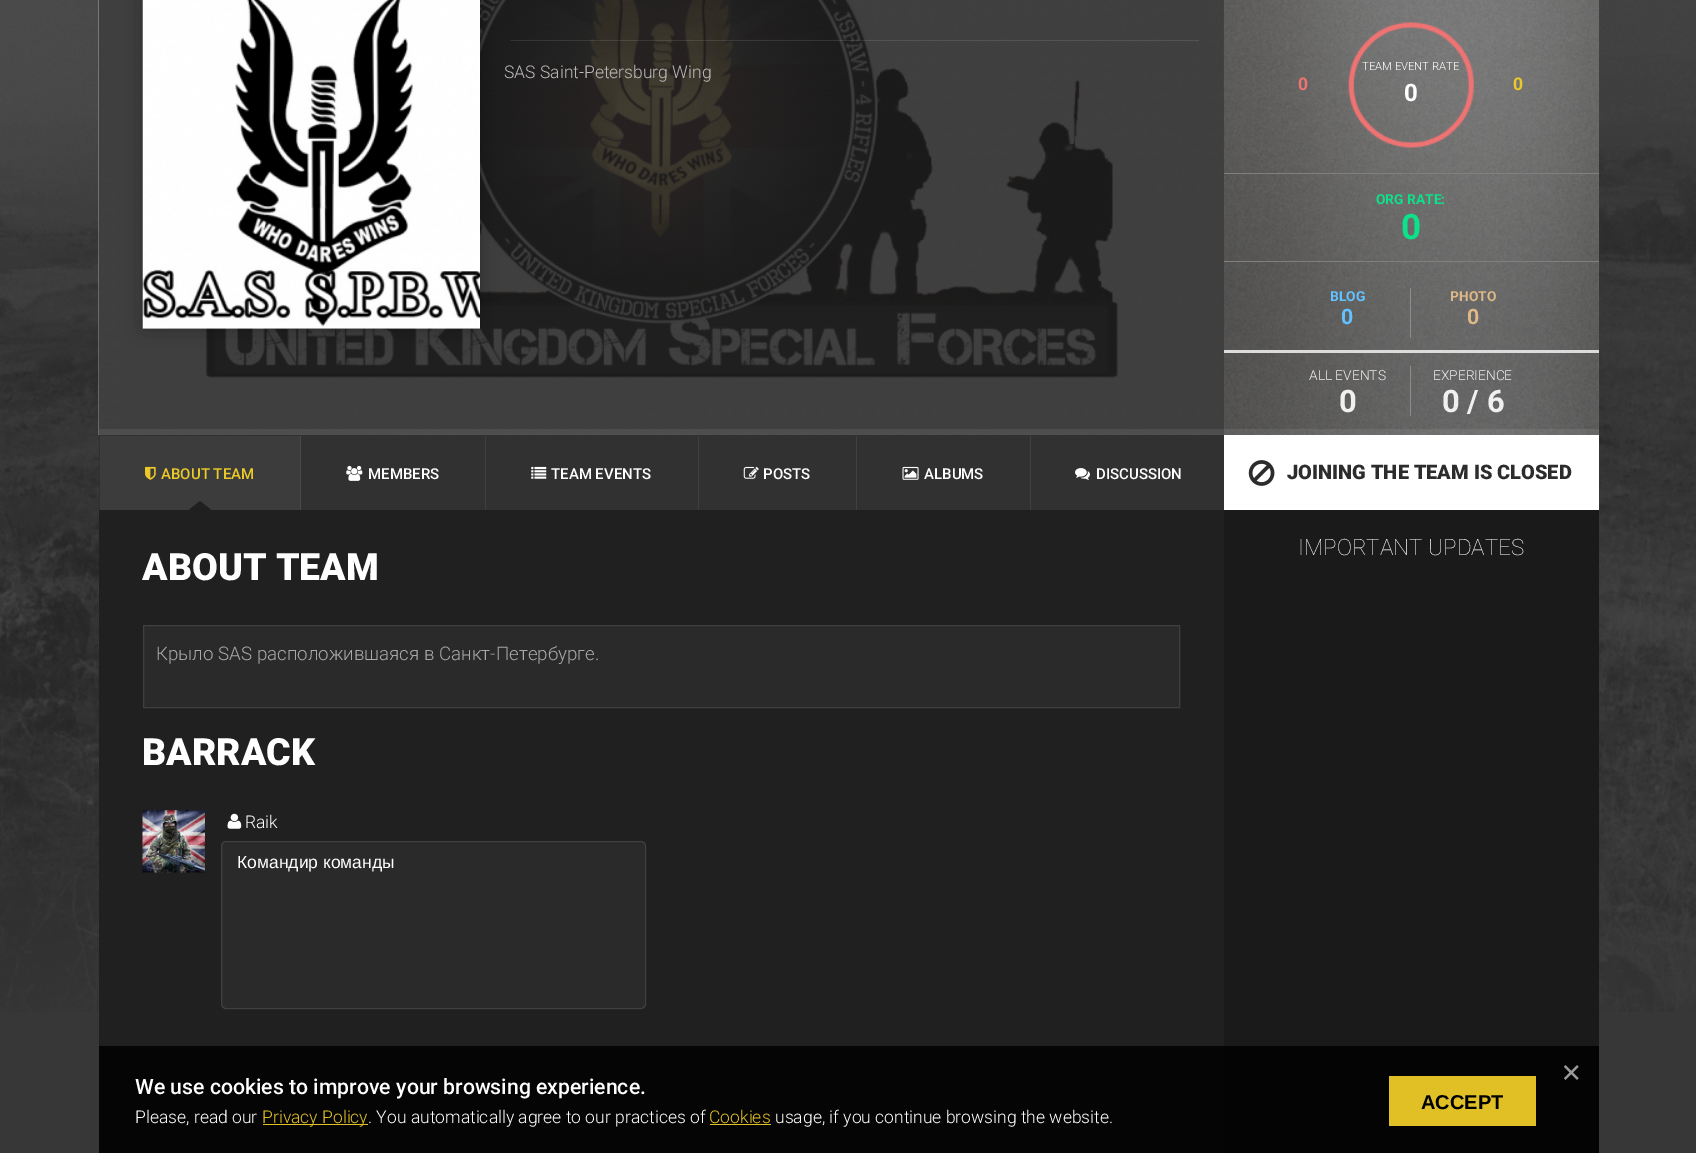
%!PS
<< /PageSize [1696 1153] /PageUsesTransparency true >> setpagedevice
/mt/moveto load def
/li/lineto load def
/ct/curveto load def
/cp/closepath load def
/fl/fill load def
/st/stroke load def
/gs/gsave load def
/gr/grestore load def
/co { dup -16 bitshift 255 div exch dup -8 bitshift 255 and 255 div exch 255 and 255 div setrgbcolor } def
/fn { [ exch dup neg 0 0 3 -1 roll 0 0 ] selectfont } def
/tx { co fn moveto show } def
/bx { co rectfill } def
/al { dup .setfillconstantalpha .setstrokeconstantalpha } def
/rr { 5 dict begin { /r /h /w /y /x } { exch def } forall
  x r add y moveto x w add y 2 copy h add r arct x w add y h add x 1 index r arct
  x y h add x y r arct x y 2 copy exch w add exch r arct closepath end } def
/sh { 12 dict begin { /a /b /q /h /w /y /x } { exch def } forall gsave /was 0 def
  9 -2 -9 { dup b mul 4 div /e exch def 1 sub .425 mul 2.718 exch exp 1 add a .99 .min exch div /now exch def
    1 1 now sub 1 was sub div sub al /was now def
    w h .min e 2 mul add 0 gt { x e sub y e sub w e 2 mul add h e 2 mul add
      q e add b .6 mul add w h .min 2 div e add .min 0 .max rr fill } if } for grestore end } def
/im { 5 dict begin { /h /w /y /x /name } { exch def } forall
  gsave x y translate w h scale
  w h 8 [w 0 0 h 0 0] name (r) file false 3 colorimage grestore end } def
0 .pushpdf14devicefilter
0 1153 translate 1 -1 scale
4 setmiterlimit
0 0 1696 1153 16#373737 bx
(media/1.raw) 0 0 1696 1012 im
(media/2.raw) 98 0 1126 435 im
0.85 al
99 0 1125 435 16#1E1E1E bx
1 al
16#000000 co
143 -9 337 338 0 12.5 .3 sh
(media/3.raw) 142 0 338 329 im
0.1 al
511 40 688 1 16#FFFFFF bx
1 al
(media/4.raw) 1223 0 376 435 im
(media/5.raw) 1348 22 126 126 im
1224 173 375 1 16#808080 bx
1224 261 375 1 16#808080 bx
1224 350 375 3 16#DCDCDC bx
1410 288 1 50 16#8C8C8C bx
1410 366 1 50 16#8C8C8C bx
0.08 al
99 429 1500 6 16#FFFFFF bx
1 al
99 435 1125 75 16#313131 bx
0.05 al
100 436 200 74 16#FFFFFF bx
1 al
300 436 1 75 16#494949 bx
(media/6.raw) 145 466 11 14 im
16#202020 co
212.5 511 mt 187.5 511 li 200 501 li cp fl
485 436 1 75 16#3F3F3F bx
(media/7.raw) 346 465 17 16 im
698 436 1 75 16#3F3F3F bx
(media/8.raw) 531 466 16 13 im
0.07 al
856 436 1 75 16#FFFFFF bx
1 al
(media/9.raw) 743 466 16 13 im
0.07 al
1030 436 1 75 16#FFFFFF bx
1 al
(media/10.raw) 902 466 17 14 im
(media/11.raw) 1075 468 15 12 im
1224 435 375 75 16#FFFFFF bx
(media/12.raw) 1248 460 27 26 im
99 510 1125 536 16#202020 bx
99 1046 1125 107 16#050505 bx
1224 510 375 536 16#1A1A1A bx
1224 1046 375 107 16#040404 bx
16#2A2A2A co
143.5 625.5 mt 1179.5 625.5 li 1179.5 707.5 li 143.5 707.5 li cp gs fl gr
16#3F3F3F co
st
(media/13.raw) 142 810 63 63 im
(media/14.raw) 227 813 15 16 im
16#2A2A2A co
221 841 425 168 5 rr fl
16#272727 co
226 844 mt 641 844 li 643 844 645 845 645 848 ct 645 847 li 645 845 643 843 641 843 ct 227 843 li 226 843 225 844 224 844 ct cp fl
0.1 al
16#FFFFFF co
221.5 841.5 424 167 4.5 rr st
1 al
(media/15.raw) 1564 1065 15 15 im
263 1124 105 1 16#E1C026 bx
710 1124 61 1 16#E1C026 bx
1389 1076 147 50 16#E1C026 bx
(SAS Saint-Petersburg Wing) 504 78 /Roboto-Light 17.5 16#BABAB9 tx
(TEAM EVENT RATE) 1362 70 /Roboto-Light 11.25 16#FFFFFF tx
(0) 1298 90 /Roboto-Bold 17.5 16#F07373 tx
(0) 1404 101 /Roboto-Bold 24 16#FFFFFF tx
(0) 1513 90 /Roboto-Bold 17.5 16#EBC928 tx
(ORG RATE:) 1376 204 /Roboto-Bold 13.75 16#0BE289 tx
(0) 1401 239 /Roboto-Bold 35 16#0BE289 tx
(BLOG) 1330 301 /Roboto-Bold 13.75 16#61C2FF tx
(0) 1341 324 /Roboto-Bold 21.25 16#61C2FF tx
(PHOTO) 1450 301 /Roboto-Bold 13.75 16#DEB887 tx
(0) 1467 324 /Roboto-Bold 21.25 16#DEB887 tx
(ALL EVENTS) 1309 380 /Roboto-Light 13.75 16#F0F0F0 tx
(0) 1339 412 /Roboto-Bold 31 16#F0F0F0 tx
(EXPERIENCE) 1433 380 /Roboto-Light 13.75 16#F0F0F0 tx
(0 / 6) 1442 412 /Roboto-Bold 31 16#F0F0F0 tx
(ABOUT TEAM) 161 479 /Roboto-Medium 15 16#EBC928 tx
(MEMBERS) 368 479 /Roboto-Medium 15 16#FFFFFF tx
(TEAM EVENTS) 551 479 /Roboto-Medium 15 16#FFFFFF tx
(POSTS) 763 479 /Roboto-Medium 15 16#FFFFFF tx
(ALBUMS) 924 479 /Roboto-Medium 15 16#FFFFFF tx
(DISCUSSION) 1096 479 /Roboto-Medium 15 16#FFFFFF tx
(JOINING THE TEAM IS CLOSED) 1287 479 /Roboto-Black 20 16#2C2C2C tx
(IMPORTANT UPDATES) 1298 555 /Roboto-Thin 22.5 16#FFFFFF tx
(ABOUT TEAM) 142 580 /Roboto-Black 37.5 16#FFFFFF tx
(Крыло SAS расположившаяся в Санкт-Петербурге.) 156 660 /Roboto-Light 18.75 16#A9A9A9 tx
(BARRACK) 142 765 /Roboto-Black 37.5 16#FFFFFF tx
(Raik) 245 828 /Roboto-Light 17.5 16#FFFFFF tx
(Командир команды) 237 868 /LiberationSans-Regular 17.5 16#FFFFFF tx
(We use cookies to improve your browsing experience.) 135 1094 /Roboto-Medium 21.25 16#FFFFFF tx
(Please, read our) 135 1123 /Roboto-Light 17.5 16#FFFFFF tx
(Privacy Policy) 262 1123 /Roboto-Light 17.5 16#E1C026 tx
(. You automatically agree to our practices of) 368 1123 /Roboto-Light 17.5 16#FFFFFF tx
(Cookies) 709 1123 /Roboto-Light 17.5 16#E1C026 tx
(usage, if you continue browsing the website.) 775 1123 /Roboto-Light 17.5 16#FFFFFF tx
(ACCEPT) 1421 1109 /LiberationSans-Bold 20 16#000000 tx
.poppdf14devicefilter showpage
